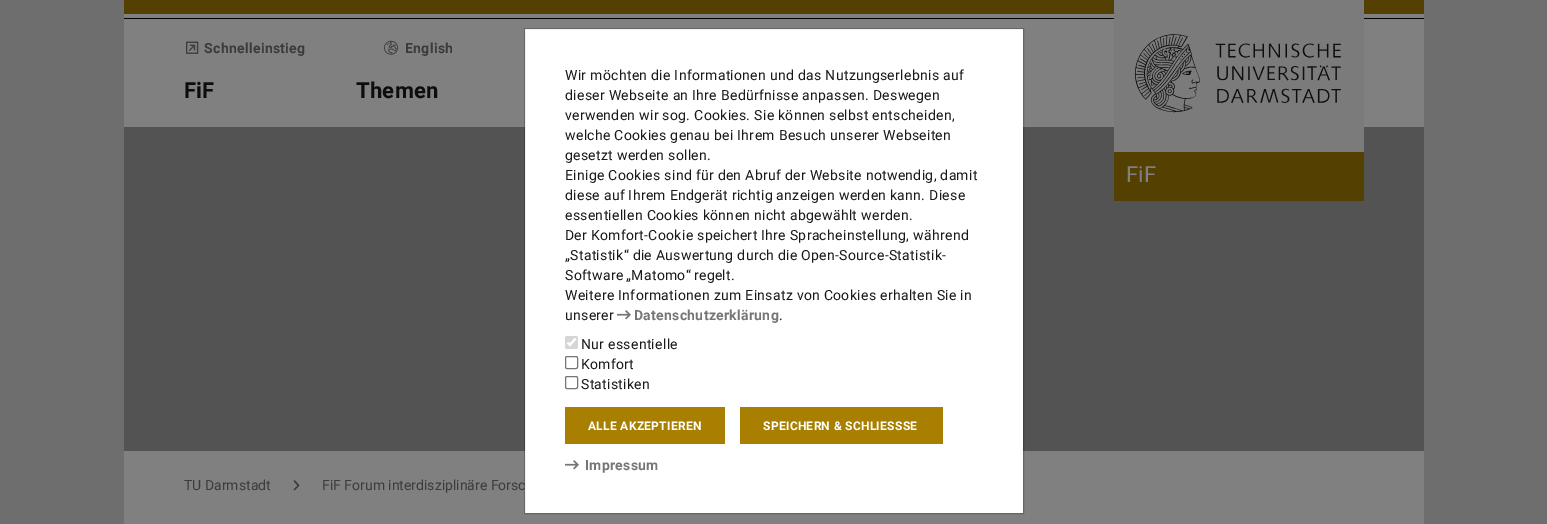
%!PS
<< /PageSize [1547 524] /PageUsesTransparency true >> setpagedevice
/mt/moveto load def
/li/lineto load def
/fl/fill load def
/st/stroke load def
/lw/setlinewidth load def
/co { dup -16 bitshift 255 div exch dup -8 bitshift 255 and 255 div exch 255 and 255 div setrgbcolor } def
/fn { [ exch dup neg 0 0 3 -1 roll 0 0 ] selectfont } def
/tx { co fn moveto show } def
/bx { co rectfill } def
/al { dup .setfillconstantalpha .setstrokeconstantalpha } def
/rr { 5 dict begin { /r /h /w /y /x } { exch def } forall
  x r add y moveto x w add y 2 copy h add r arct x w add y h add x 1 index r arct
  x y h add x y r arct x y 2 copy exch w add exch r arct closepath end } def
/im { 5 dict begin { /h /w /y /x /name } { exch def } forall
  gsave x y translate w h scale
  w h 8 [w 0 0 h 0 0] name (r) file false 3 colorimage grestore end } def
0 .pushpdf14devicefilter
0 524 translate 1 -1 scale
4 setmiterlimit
0 0 1547 524 16#6E6E6E bx
124 14 1300 510 16#808080 bx
124 0 1300 14 16#544000 bx
124 18 1300 1 16#000000 bx
(media/1.raw) 186 41 13 13 im
(media/2.raw) 384 40 14 15 im
124 127 1300 324 16#535353 bx
1114 0 250 152 16#7B7B7B bx
(media/3.raw) 1134 34 207 79 im
1114 152 250 49 16#544000 bx
16#3B3B3B co
1.4 lw
1 setlinecap
1 setlinejoin
294.5 489.5 mt 298.5 485.5 li 294.5 481 li st
525 29 498 484 16#FFFFFF bx
/Roboto-Bold 14 fn
16#3B3B3B co
204 53 mt .3 0 (Schnelleinstieg) ashow
405 53 mt .3 0 (English) ashow
/Roboto-Bold 22 fn
16#0D0D0D co
184 98 mt .25 0 (FiF) ashow
356 98 mt .25 0 (Themen) ashow
/Roboto-Regular 22 fn
16#808080 co
1126 182 mt .25 0 (FiF) ashow
(TU Darmstadt) 184 490 /Roboto-Regular 14 16#3B3B3B tx
(FiF Forum interdisziplinäre Forsc) 322 490 /Roboto-Regular 14 16#3B3B3B tx
0.2 al
16#000000 co
1 lw
0 setlinecap
0 setlinejoin
524.5 28.5 499 485 rectstroke
1 al
16#1A1919 co
565 80 mt .3 0 (Wir möchten die Informationen und das Nutzungserlebnis auf) ashow
565 100 mt .3 0 (dieser Webseite an Ihre Bedürfnisse anpassen. Deswegen) ashow
565 120 mt .3 0 (verwenden wir sog. Cookies. Sie können selbst entscheiden,) ashow
565 140 mt .3 0 (welche Cookies genau bei Ihrem Besuch unserer Webseiten) ashow
565 160 mt .3 0 (gesetzt werden sollen.) ashow
565 180 mt .3 0 (Einige Cookies sind für den Abruf der Website notwendig, damit) ashow
565 200 mt .3 0 (diese auf Ihrem Endgerät richtig anzeigen werden kann. Diese) ashow
565 220 mt .3 0 (essentiellen Cookies können nicht abgewählt werden.) ashow
565 240 mt .3 0 (Der Komfort-Cookie speichert Ihre Spracheinstellung, während) ashow
565 260 mt .3 0 („Statistik“ die Auswertung durch die Open-Source-Statistik-) ashow
565 280 mt -1 0 32 .3 0 (Software „Matomo“ regelt.) awidthshow
565 300 mt .3 0 (Weitere Informationen zum Einsatz von Cookies erhalten Sie in) ashow
565 320 mt .3 0 (unserer) ashow
(media/4.raw) 617 310 14 10 im
/Roboto-Bold 14 fn
16#767676 co
634 320 mt .3 0 (Datenschutzerklärung) ashow
/Roboto-Regular 14 fn
16#1A1919 co
779 320 mt .3 0 (.) ashow
16#D6D6D6 co
565 336 13 13 2 rr fl
16#FFFFFF co
2.1 lw
567.5 342.5 mt 570 345 li 575.5 338.5 li st
16#1A1919 co
581 349 mt .3 0 (Nur essentielle) ashow
16#767676 co
1 lw
565.5 356.5 12 12 1.5 rr st
16#1A1919 co
581 369 mt .3 0 (Komfort) ashow
16#767676 co
565.5 376.5 12 12 1.5 rr st
16#1A1919 co
581 389 mt .3 0 (Statistiken) ashow
565 407 160 37 16#A87F00 bx
/Roboto-Bold 12 fn
16#FFFFFF co
588 430 mt .3 0 (ALLE AKZEPTIEREN) ashow
740 407 203 37 16#A87F00 bx
16#FFFFFF co
763 430 mt .3 0 (SPEICHERN & SCHLIESSSE) ashow
(media/4.raw) 565 460 14 10 im
/Roboto-Bold 14 fn
16#767676 co
585 470 mt .3 0 (Impressum) ashow
.poppdf14devicefilter showpage
